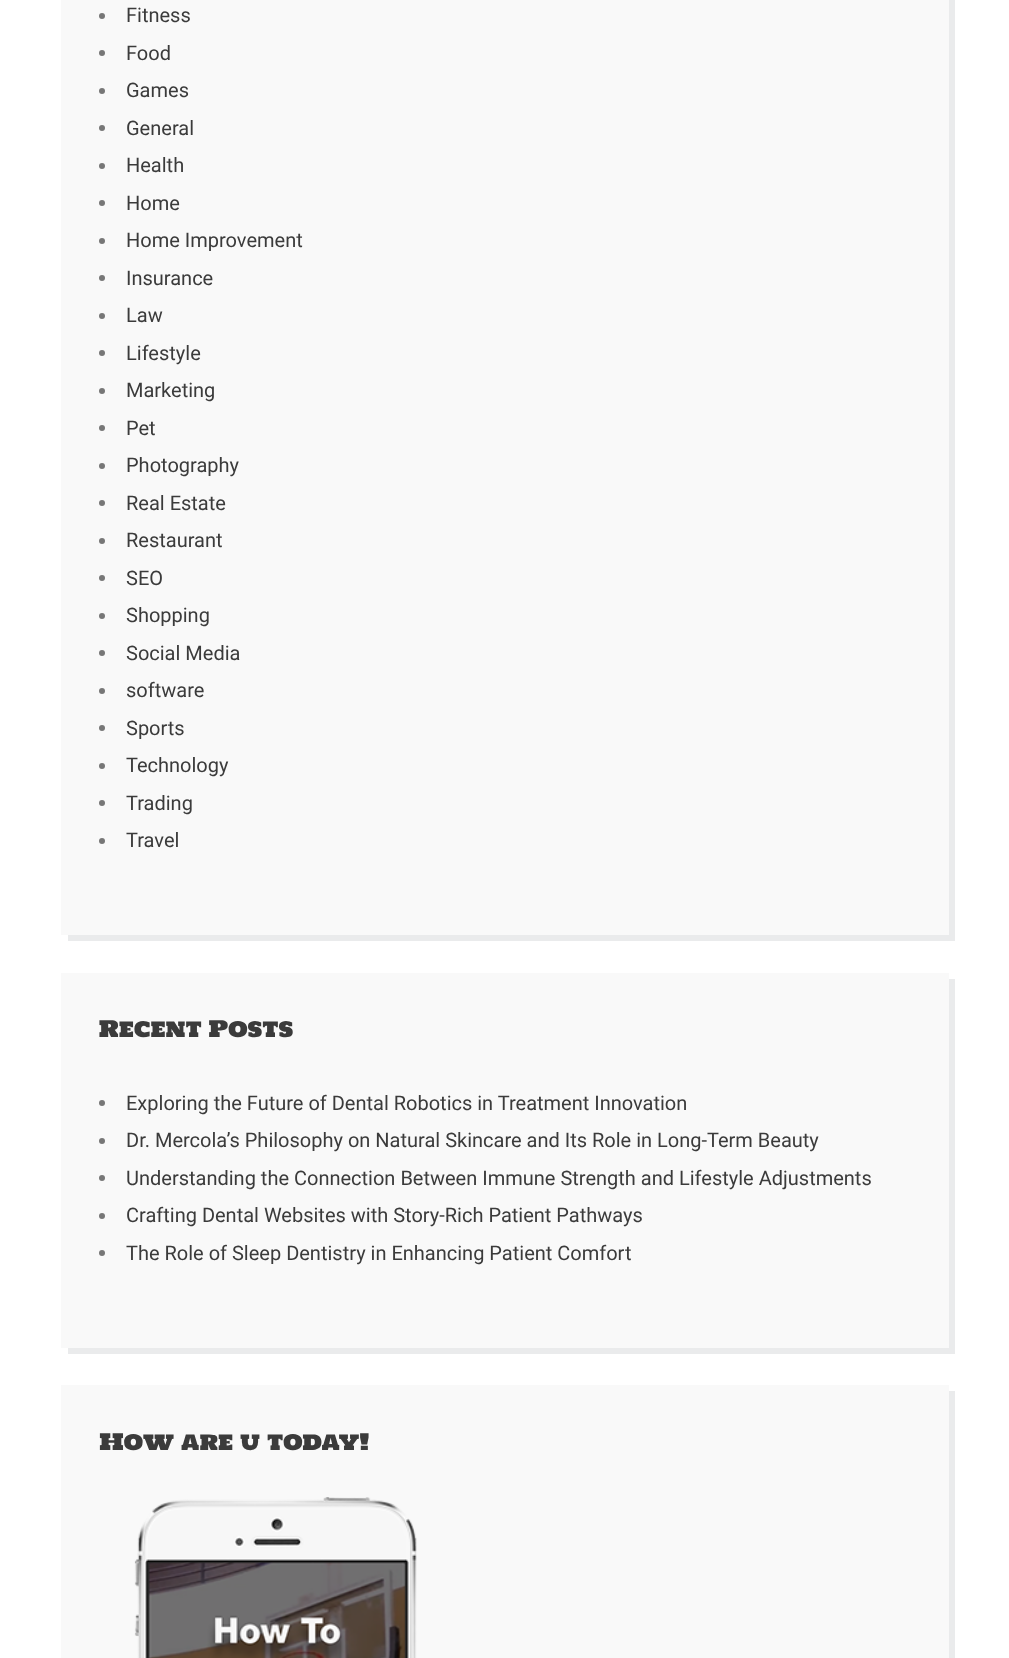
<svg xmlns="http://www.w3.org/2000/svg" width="1009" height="1658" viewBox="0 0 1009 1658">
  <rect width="100%" height="100%" fill="#fff"/>
  <path d="M68 935V941H955V-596H949V935Z" fill="#eaebec"/>
  <path d="M61 0h888v935H61z" fill="#f9f9f9"/>
  <circle cx="102" cy="16" r="3" fill="#777"/>
  <circle cx="102" cy="53" r="3" fill="#777"/>
  <circle cx="102" cy="91" r="3" fill="#777"/>
  <circle cx="102" cy="128" r="3" fill="#777"/>
  <circle cx="102" cy="166" r="3" fill="#777"/>
  <circle cx="102" cy="203" r="3" fill="#777"/>
  <circle cx="102" cy="241" r="3" fill="#777"/>
  <circle cx="102" cy="278" r="3" fill="#777"/>
  <circle cx="102" cy="316" r="3" fill="#777"/>
  <circle cx="102" cy="353" r="3" fill="#777"/>
  <circle cx="102" cy="391" r="3" fill="#777"/>
  <circle cx="102" cy="428" r="3" fill="#777"/>
  <circle cx="102" cy="466" r="3" fill="#777"/>
  <circle cx="102" cy="503" r="3" fill="#777"/>
  <circle cx="102" cy="541" r="3" fill="#777"/>
  <circle cx="102" cy="578" r="3" fill="#777"/>
  <circle cx="102" cy="616" r="3" fill="#777"/>
  <circle cx="102" cy="653" r="3" fill="#777"/>
  <circle cx="102" cy="691" r="3" fill="#777"/>
  <circle cx="102" cy="728" r="3" fill="#777"/>
  <circle cx="102" cy="766" r="3" fill="#777"/>
  <circle cx="102" cy="803" r="3" fill="#777"/>
  <circle cx="102" cy="841" r="3" fill="#777"/>
  <path d="M68 1348V1354H955V979H949V1348Z" fill="#eaebec"/>
  <path d="M61 973h888v375H61z" fill="#f9f9f9"/>
  <circle cx="102" cy="1103" r="3" fill="#777"/>
  <circle cx="102" cy="1141" r="3" fill="#777"/>
  <circle cx="102" cy="1178" r="3" fill="#777"/>
  <circle cx="102" cy="1216" r="3" fill="#777"/>
  <circle cx="102" cy="1253" r="3" fill="#777"/>
  <path d="M68 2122V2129H955V1391H949V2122Z" fill="#eaebec"/>
  <path d="M61 1385h888v273H61z" fill="#f9f9f9"/>
  <image x="134" y="1497" width="283" height="161" href="img/1.png"/>
  <g font-family="Roboto" font-size="20" fill="#3b3b3b">
    <text x="126" y="22">Fitness</text>
    <text x="126" y="60">Food</text>
    <text x="126" y="97">Games</text>
    <text x="126" y="135">General</text>
    <text x="126" y="172">Health</text>
    <text x="126" y="210">Home</text>
    <text x="126" y="247">Home Improvement</text>
    <text x="126" y="285">Insurance</text>
    <text x="126" y="322">Law</text>
    <text x="126" y="360">Lifestyle</text>
    <text x="126" y="397">Marketing</text>
    <text x="126" y="435">Pet</text>
    <text x="126" y="472">Photography</text>
    <text x="126" y="510">Real Estate</text>
    <text x="126" y="547">Restaurant</text>
    <text x="126" y="585">SEO</text>
    <text x="126" y="622">Shopping</text>
    <text x="126" y="660">Social Media</text>
    <text x="126" y="697">software</text>
    <text x="126" y="735">Sports</text>
    <text x="126" y="772">Technology</text>
    <text x="126" y="810">Trading</text>
    <text x="126" y="847">Travel</text>
  </g>
  <text x="99" y="1037" font-family="Holtwood One SC" font-size="22.5" fill="#3b3b3b">Recent Posts</text>
  <g font-family="Roboto" font-size="20" fill="#3b3b3b">
    <text x="126" y="1110">Exploring the Future of Dental Robotics in Treatment Innovation</text>
    <text x="126" y="1147">Dr. Mercola’s Philosophy on Natural Skincare and Its Role in Long-Term Beauty</text>
    <text x="126" y="1185">Understanding the Connection Between Immune Strength and Lifestyle Adjustments</text>
    <text x="126" y="1222">Crafting Dental Websites with Story-Rich Patient Pathways</text>
    <text x="126" y="1260">The Role of Sleep Dentistry in Enhancing Patient Comfort</text>
  </g>
  <text x="99" y="1450" font-family="Holtwood One SC" font-size="22.5" fill="#3b3b3b">How are u today!</text>
</svg>
